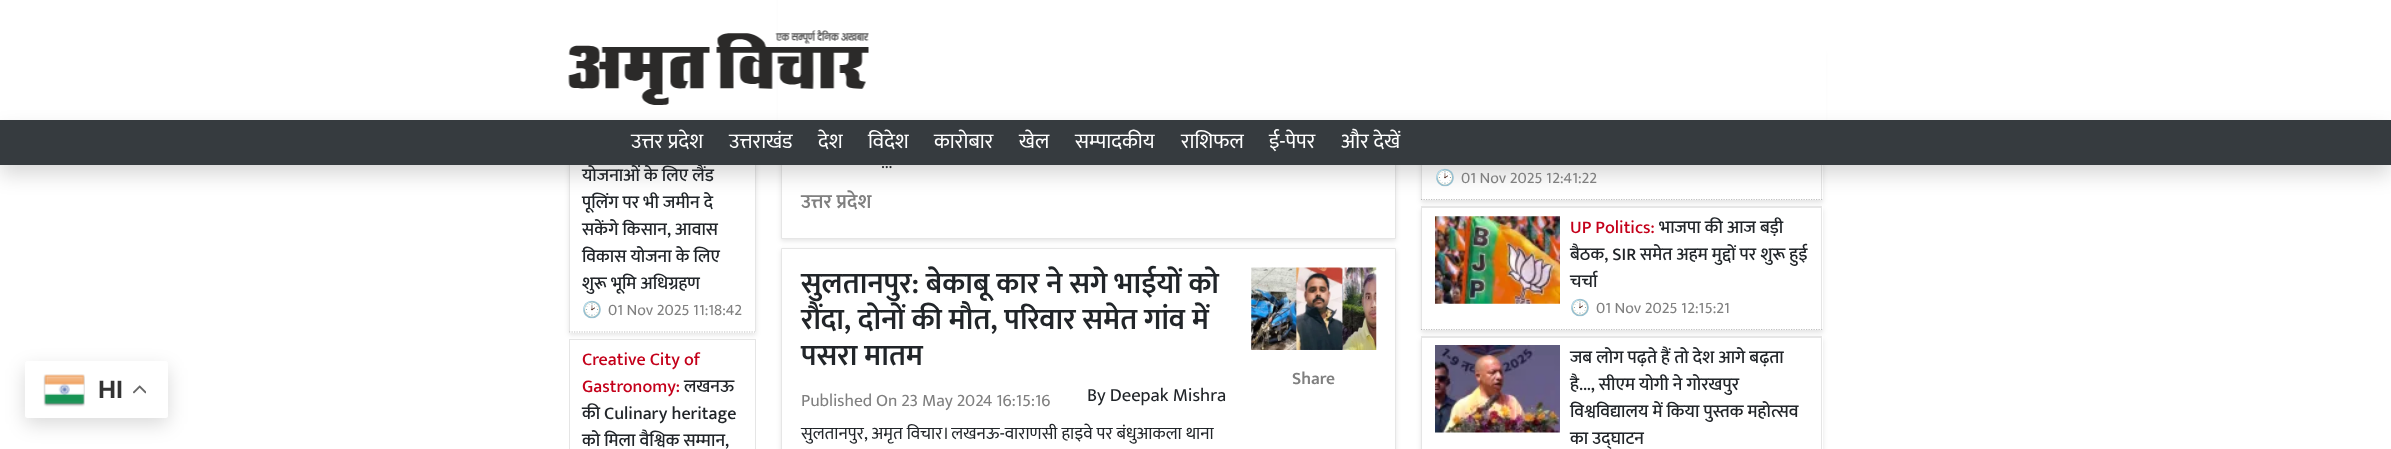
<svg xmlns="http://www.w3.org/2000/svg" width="2391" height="449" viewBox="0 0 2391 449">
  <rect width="100%" height="100%" fill="#fff"/>
  <path d="M781 -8h615v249H781z" fill="#0000001a" filter="blur(2.5px)"/>
  <path d="M782 165h613v73H782z" fill="#fff"/>
  <path d="M781.5 -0.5h614v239H781.5z" fill="none" stroke="#e6e6e6"/>
  <path d="M1421 53h402v150H1421z" fill="#0000001a" filter="blur(2.5px)"/>
  <path d="M1421 165h402v35H1421z" fill="#fff"/>
  <path d="M1822 50V200L1821 199V51Z" fill="#0000001a"/>
  <path d="M1421 199.5H1822.5" fill="none" stroke="#c0c0c0" stroke-width="1.2" stroke-dasharray="1.25 1.25"/>
  <path d="M1421 200V50L1422 51V199Z" fill="#0000001a"/>
  <path d="M778 0h1048v120H778z" fill="#fff"/>
  <image x="568" y="30" width="301" height="75" href="img/1.png"/>
  <path d="M569 130h187v205H569z" fill="#0000001a" filter="blur(2.5px)"/>
  <path d="M569 165h187v168H569z" fill="#fff"/>
  <path d="M756 128V332L755 331V129Z" fill="#0000001a"/>
  <path d="M569 332H756" fill="none" stroke="#c0c0c0" stroke-width="1.2" stroke-dasharray="1.25 1.25"/>
  <path d="M569 332V128L570 129V331Z" fill="#0000001a"/>
  <path d="M0 130h2391v45H0z" fill="#00000026" filter="blur(10px)"/>
  <rect x="25" y="368" width="143" height="56" rx="2.5" fill="#00000026" filter="blur(9.5px)"/>
  <rect x="25" y="361" width="143" height="57" rx="2.5" fill="#fff"/>
  <image x="43" y="374" width="42" height="33" href="img/2.png"/>
  <image x="133" y="385" width="13" height="9" href="img/3.png"/>
  <path d="M569 339H756L755 340H570Z" fill="#e5e5e5"/>
  <path d="M756 339V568L755 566V340Z" fill="#0000001a"/>
  <path d="M569 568V339L570 340V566Z" fill="#0000001a"/>
  <path d="M781 250h615v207H781z" fill="#0000001a" filter="blur(2.5px)"/>
  <path d="M781.5 248.5h614v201H781.5z" fill="#fff" stroke="#e6e6e6"/>
  <image x="1251" y="267" width="126" height="83" href="img/4.png"/>
  <path d="M1421 209h402v124H1421z" fill="#0000001a" filter="blur(2.5px)"/>
  <path d="M1421 206h402v124H1421z" fill="#fff"/>
  <path d="M1421 206H1822L1821 208H1422Z" fill="#e6e6e6"/>
  <path d="M1822 206V330L1821 329V208Z" fill="#0000001a"/>
  <path d="M1421 329.5H1822.5" fill="none" stroke="#c0c0c0" stroke-width="1.2" stroke-dasharray="1.25 1.25"/>
  <path d="M1421 330V206L1422 208V329Z" fill="#0000001a"/>
  <image x="1435" y="216" width="125" height="88" href="img/5.png"/>
  <path d="M1421 339h402v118H1421z" fill="#0000001a" filter="blur(2.5px)"/>
  <path d="M1421 336h402v113H1421z" fill="#fff"/>
  <path d="M1421 336H1822L1821 338H1422Z" fill="#e6e6e6"/>
  <path d="M1822 336V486L1821 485V338Z" fill="#0000001a"/>
  <path d="M1421 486V336L1422 338V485Z" fill="#0000001a"/>
  <image x="1435" y="345" width="125" height="88" href="img/6.png"/>
  <text x="98" y="398" font-family="Liberation Sans" font-size="25" font-weight="bold" fill="#333">HI</text>
  <text x="582" y="181" font-family="Mukta" font-size="18" font-weight="500" fill="#212529">योजनाओं के लिए लैंड</text>
  <path d="M0 120h2391v45H0z" fill="#363b3f"/>
  <g font-family="Mukta" font-size="21" fill="#fff">
    <text x="1341" y="148">और देखें</text>
    <text x="1269" y="148">ई-पेपर</text>
    <text x="1181" y="148">राशिफल</text>
    <text x="1075" y="148">सम्पादकीय</text>
    <text x="1019" y="148">खेल</text>
    <text x="934" y="148">कारोबार</text>
    <text x="868" y="148">विदेश</text>
    <text x="818" y="148">देश</text>
    <text x="729" y="148">उत्तराखंड</text>
    <text x="631" y="148">उत्तर प्रदेश</text>
  </g>
  <g font-family="Mukta" font-size="18" font-weight="500" fill="#212529">
    <text x="582" y="208">पूलिंग पर भी जमीन दे</text>
    <text x="582" y="235">सकेंगे किसान, आवास</text>
    <text x="582" y="262">विकास योजना के लिए</text>
    <text x="582" y="289">शुरू भूमि अधिग्रहण</text>
  </g>
  <text x="582" y="315" font-family="Noto Color Emoji" font-size="16" fill="#808080">🕑</text>
  <text x="608" y="315" font-family="Mukta" font-size="16" fill="#808080">01 Nov 2025 11:18:42</text>
  <g font-family="Mukta" font-size="18" font-weight="500" fill="#c4001a">
    <text x="582" y="365">Creative City of</text>
    <text x="582" y="392">Gastronomy:</text>
  </g>
  <g font-family="Mukta" font-size="18" font-weight="500" fill="#212529">
    <text x="684" y="392">लखनऊ</text>
    <text x="582" y="419">की Culinary heritage</text>
    <text x="582" y="446">को मिला वैश्विक सम्मान,</text>
  </g>
  <text x="881" y="168" font-family="Mukta" font-size="17.5" fill="#212529">...</text>
  <text x="801" y="208" font-family="Mukta" font-size="20" font-weight="600" fill="#808080">उत्तर प्रदेश</text>
  <g font-family="Mukta" font-size="30" font-weight="600" fill="#212529">
    <text x="801" y="293">सुलतानपुर: बेकाबू कार ने सगे भाईयों को</text>
    <text x="801" y="329">रौंदा, दोनों की मौत, परिवार समेत गांव में</text>
    <text x="801" y="365">पसरा मातम</text>
  </g>
  <text x="801" y="406" font-family="Mukta" font-size="17.5" fill="#808080">Published On 23 May 2024 16:15:16</text>
  <text x="1087" y="401" font-family="Mukta" font-size="18.75" fill="#212529">By Deepak Mishra</text>
  <text x="801" y="439" font-family="Mukta" font-size="17.5" fill="#212529">सुलतानपुर, अमृत विचार। लखनऊ-वाराणसी हाइवे पर बंधुआकला थाना</text>
  <text x="1292" y="384" font-family="Mukta" font-size="17.5" font-weight="600" fill="#808080">Share</text>
  <text x="1435" y="183" font-family="Noto Color Emoji" font-size="16" fill="#808080">🕑</text>
  <text x="1461" y="183" font-family="Mukta" font-size="16" fill="#808080">01 Nov 2025 12:41:22</text>
  <text x="1570" y="233" font-family="Mukta" font-size="18" font-weight="500" fill="#c4001a">UP Politics:</text>
  <g font-family="Mukta" font-size="18" font-weight="500" fill="#212529">
    <text x="1659" y="233">भाजपा की आज बड़ी</text>
    <text x="1570" y="260">बैठक, SIR समेत अहम मुद्दों पर शुरू हुई</text>
    <text x="1570" y="287">चर्चा</text>
  </g>
  <text x="1570" y="313" font-family="Noto Color Emoji" font-size="16" fill="#808080">🕑</text>
  <text x="1596" y="313" font-family="Mukta" font-size="16" fill="#808080">01 Nov 2025 12:15:21</text>
  <g font-family="Mukta" font-size="18" font-weight="500" fill="#212529">
    <text x="1570" y="363">जब लोग पढ़ते हैं तो देश आगे बढ़ता</text>
    <text x="1570" y="390">है..., सीएम योगी ने गोरखपुर</text>
    <text x="1570" y="417">विश्वविद्यालय में किया पुस्तक महोत्सव</text>
    <text x="1570" y="444">का उद्घाटन</text>
  </g>
</svg>
